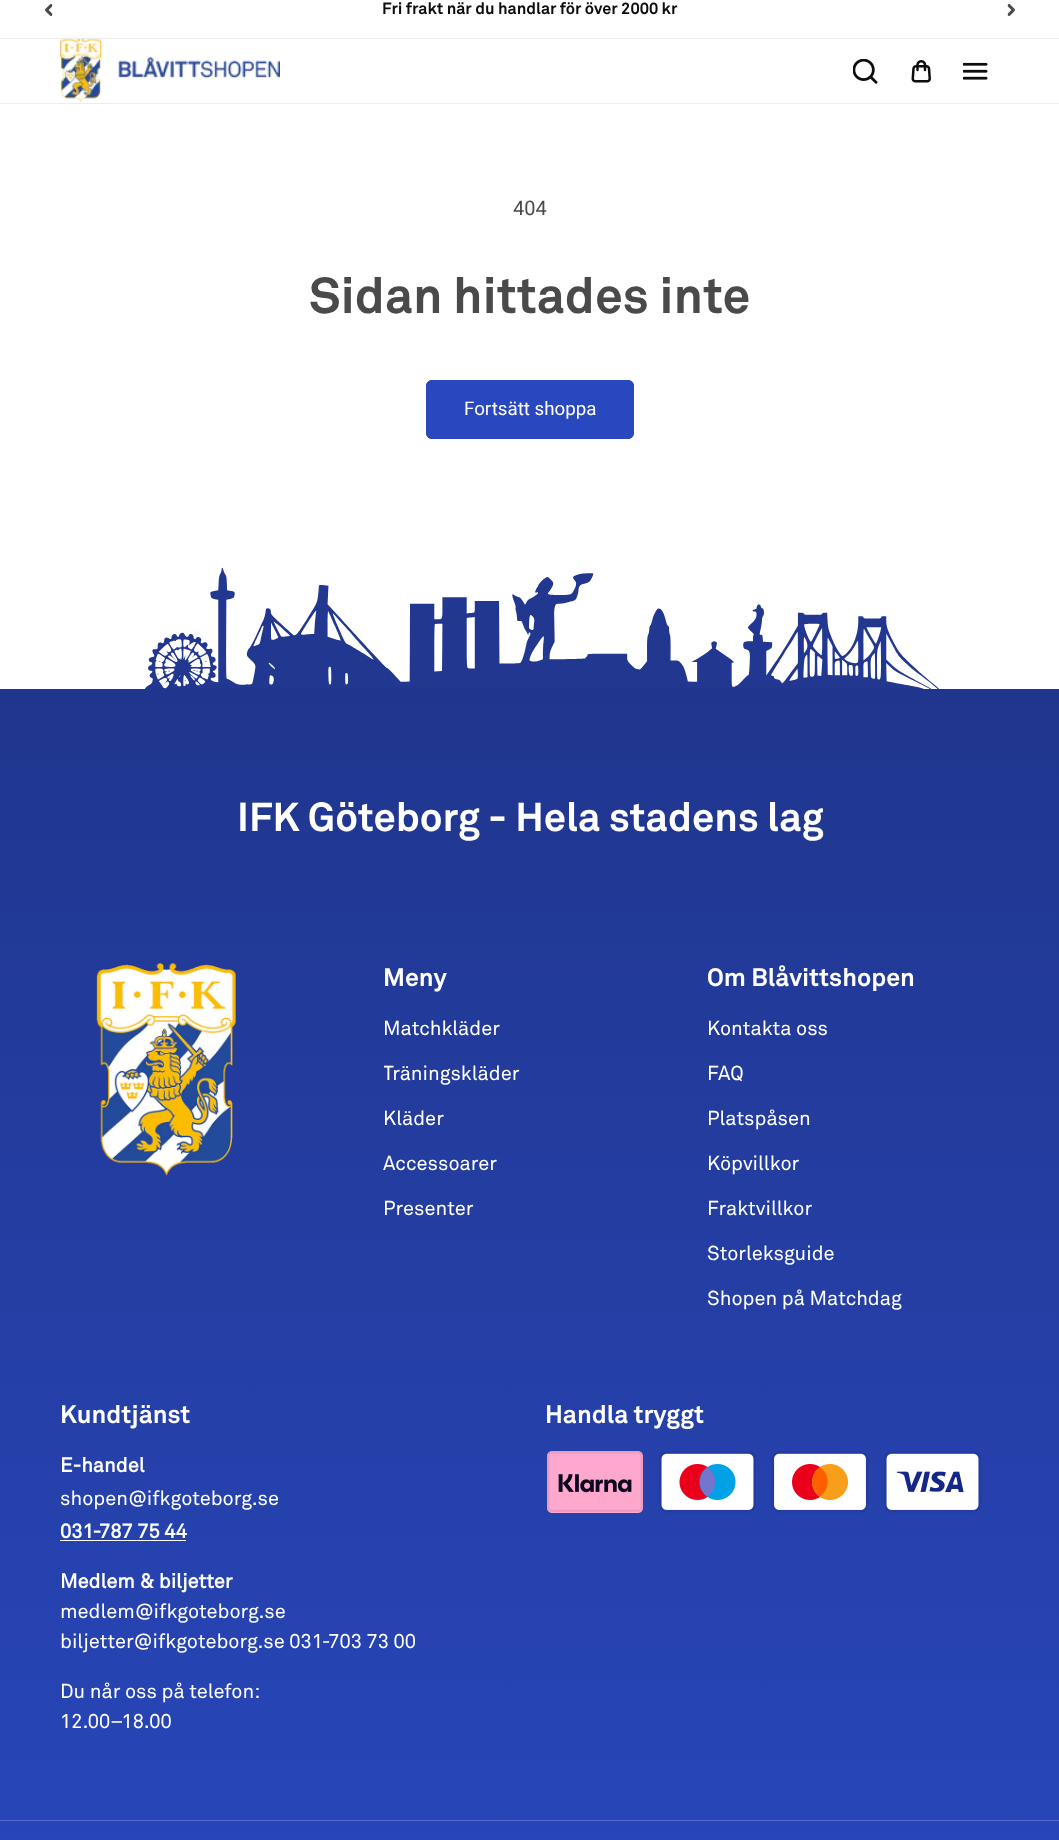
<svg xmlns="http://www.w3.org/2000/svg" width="1059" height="1840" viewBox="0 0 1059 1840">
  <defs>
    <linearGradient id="g1" gradientUnits="userSpaceOnUse" x1="530" y1="689" x2="530" y2="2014"><stop offset="0" stop-color="#20368e"/><stop offset="1" stop-color="#2948bf"/></linearGradient>
    <clipPath id="clip1"><path d="M384 1059h136v30H384z"/></clipPath>
  </defs>
  <rect width="100%" height="100%" fill="#fff"/>
  <path d="M0 38h1059v1H0z" fill="#ececec"/>
  <image x="45" y="4" width="8" height="12" href="img/1.png"/>
  <image x="1007" y="4" width="8" height="12" href="img/2.png"/>
  <path d="M0 103h1059v1H0z" fill="#ececec"/>
  <image x="60" y="39" width="220" height="63" href="img/3.png"/>
  <image x="853" y="59" width="25" height="25" href="img/4.png"/>
  <image x="911" y="60" width="20" height="23" href="img/5.png"/>
  <image x="963" y="62" width="25" height="18" href="img/6.png"/>
  <rect x="426" y="380" width="208" height="59" rx="6" fill="#2948bf"/>
  <rect x="426.5" y="380.5" width="207" height="58" rx="5.5" fill="none" stroke="#2948bf"/>
  <image x="145" y="567" width="794" height="122" href="img/7.png"/>
  <path d="M0 689h1059v1151H0z" fill="url(#g1)"/>
  <image x="96" y="963" width="140" height="213" href="img/8.png"/>
  <path d="M60 1540h126v1H60z" fill="#fff"/>
  <image x="547" y="1451" width="96" height="62" href="img/9.png"/>
  <image x="659" y="1451" width="97" height="62" href="img/10.png"/>
  <image x="771" y="1451" width="98" height="62" href="img/11.png"/>
  <image x="884" y="1451" width="97" height="62" href="img/12.png"/>
  <path d="M0 1820h1059v1H0z" fill="#536ac6"/>
  <text x="382" y="14" font-family="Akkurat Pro" font-size="16.25" font-weight="bold" fill="#0d0d0d">Fri frakt när du handlar för över 2000 kr</text>
  <text x="513" y="215" font-family="Roboto" font-size="20" fill="#4a4a4a">404</text>
  <text x="309" y="313" font-family="Akkurat Pro" font-size="50" font-weight="bold" fill="#4a4a4a">Sidan hittades inte</text>
  <text x="464" y="415" font-family="Roboto" font-size="18.75" fill="#fff">Fortsätt shoppa</text>
  <text x="237" y="831" font-family="Akkurat Pro" font-size="40" font-weight="bold" fill="#fff">IFK Göteborg - Hela stadens lag</text>
  <text x="383" y="986" font-family="Akkurat Pro" font-size="25" font-weight="bold" fill="#fff">Meny</text>
  <text x="383" y="1035" font-family="Akkurat Pro" font-size="20" fill="#fff">Matchkläder</text>
  <g clip-path="url(#clip1)">
    <text x="383" y="1080" font-family="Akkurat Pro" font-size="20" fill="#fff">Träningskläder</text>
  </g>
  <g font-family="Akkurat Pro" font-size="20" fill="#fff">
    <text x="383" y="1125">Kläder</text>
    <text x="383" y="1170">Accessoarer</text>
    <text x="383" y="1215">Presenter</text>
  </g>
  <text x="707" y="986" font-family="Akkurat Pro" font-size="25" font-weight="bold" fill="#fff">Om Blåvittshopen</text>
  <g font-family="Akkurat Pro" font-size="20" fill="#fff">
    <text x="707" y="1035">Kontakta oss</text>
    <text x="707" y="1080">FAQ</text>
    <text x="707" y="1125">Platspåsen</text>
    <text x="707" y="1170">Köpvillkor</text>
    <text x="707" y="1215">Fraktvillkor</text>
    <text x="707" y="1260">Storleksguide</text>
    <text x="707" y="1305">Shopen på Matchdag</text>
  </g>
  <text x="60" y="1423" font-family="Akkurat Pro" font-size="25" font-weight="bold" fill="#fff">Kundtjänst</text>
  <text x="60" y="1472" font-family="'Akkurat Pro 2'" font-size="20" font-weight="bold" fill="#fff">E-handel</text>
  <text x="60" y="1505" font-family="Akkurat Pro" font-size="20" fill="#fff">shopen@ifkgoteborg.se</text>
  <g font-family="'Akkurat Pro 2'" font-size="20" font-weight="bold" fill="#fff">
    <text x="60" y="1538">031-787 75 44</text>
    <text x="60" y="1588">Medlem &amp; biljetter</text>
  </g>
  <g font-family="Akkurat Pro" font-size="20" fill="#fff">
    <text x="60" y="1618">medlem@ifkgoteborg.se</text>
    <text x="60" y="1648">biljetter@ifkgoteborg.se 031-703 73 00</text>
    <text x="60" y="1698">Du når oss på telefon:</text>
    <text x="60" y="1728">12.00–18.00</text>
  </g>
  <text x="545" y="1423" font-family="Akkurat Pro" font-size="25" font-weight="bold" fill="#fff">Handla tryggt</text>
</svg>
